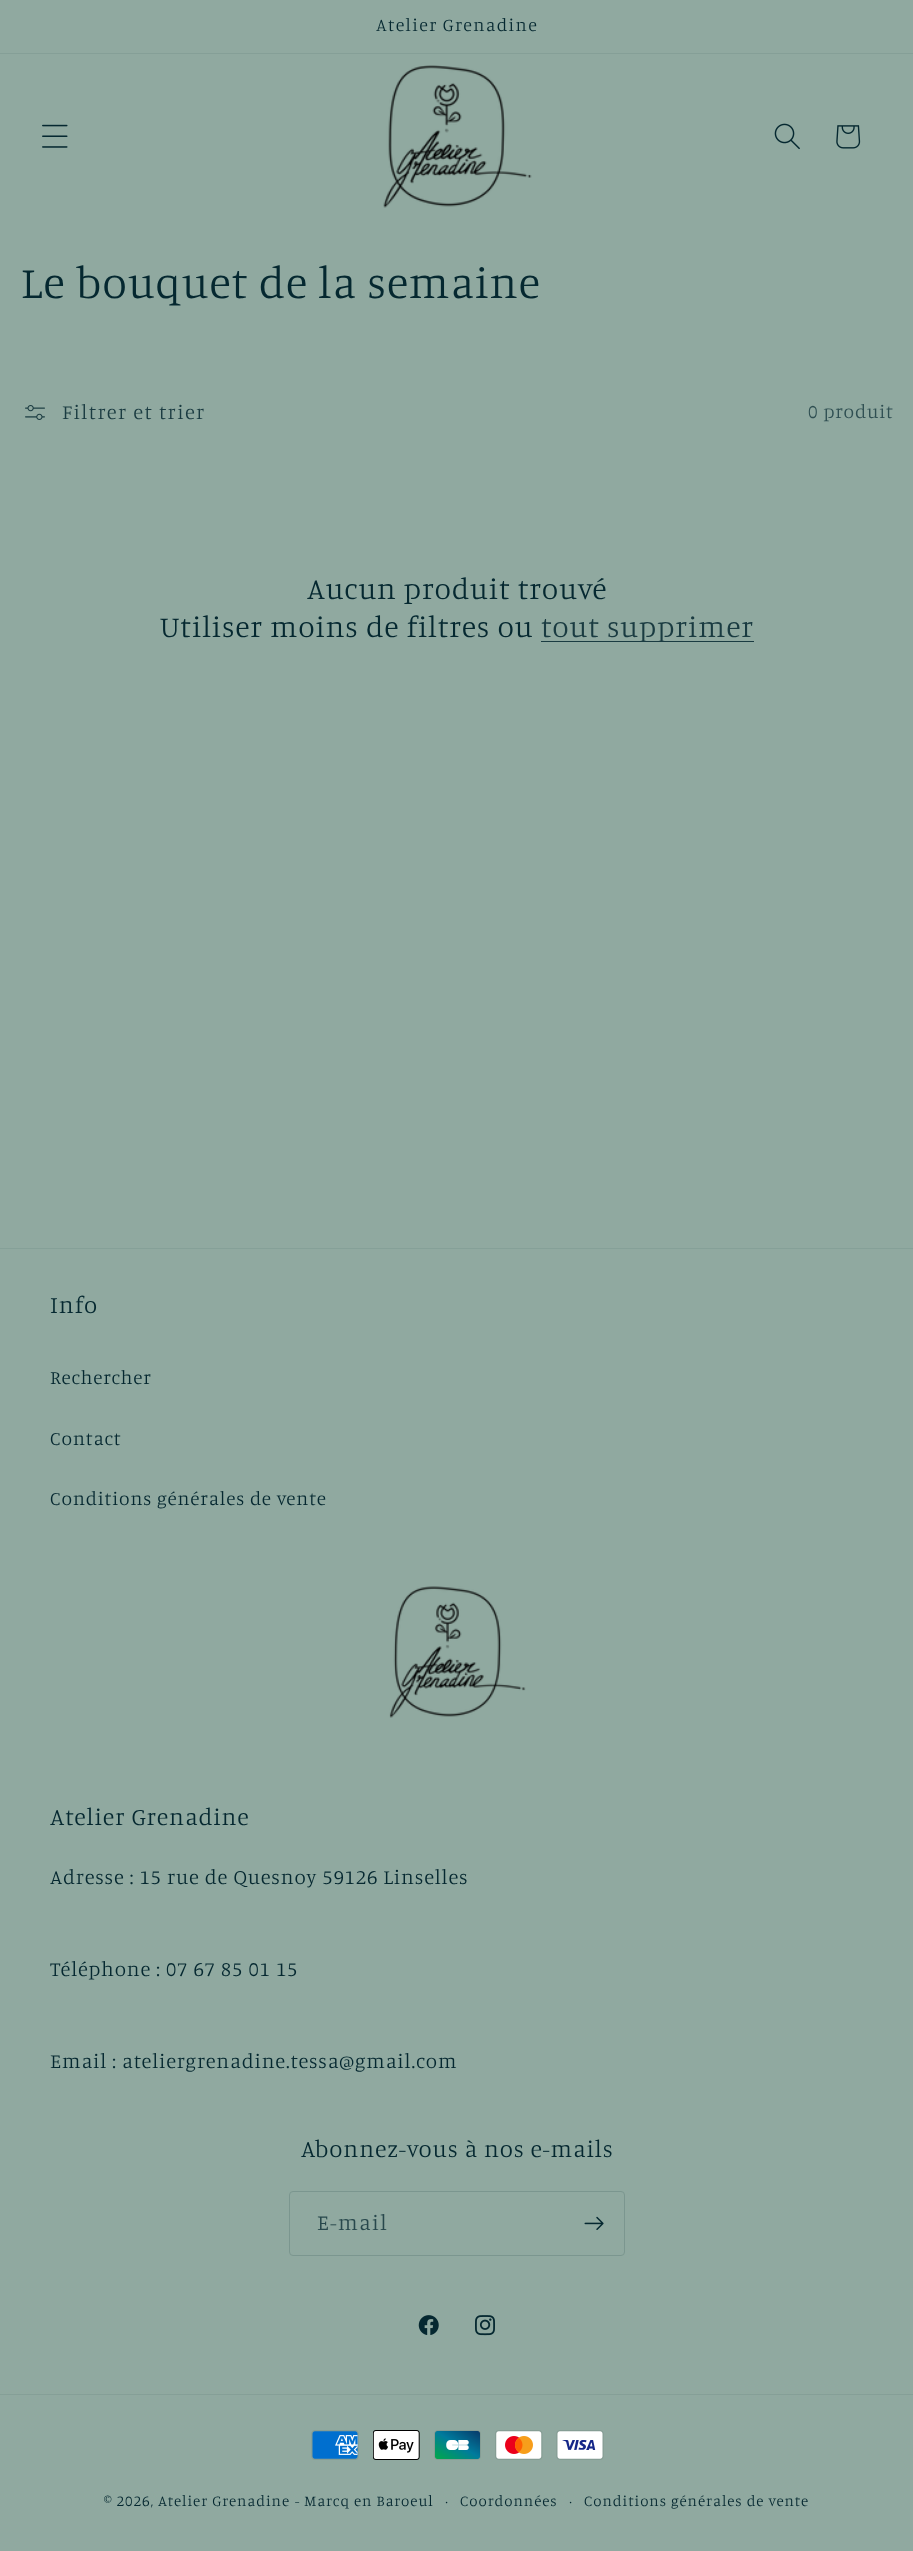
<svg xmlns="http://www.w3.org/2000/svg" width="913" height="2551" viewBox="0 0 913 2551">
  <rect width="100%" height="100%" fill="#90a9a0"/>
  <path d="M0 53h913v1H0z" fill="#859f97"/>
  <image x="42" y="124" width="26" height="24" href="img/1.png"/>
  <image x="383" y="65" width="149" height="143" href="img/2.png"/>
  <image x="774" y="123" width="26" height="27" href="img/3.png"/>
  <image x="836" y="125" width="25" height="24" href="img/4.png"/>
  <image x="25" y="405" width="20" height="15" href="img/5.png"/>
  <path d="M541 641h213v1H541z" fill="#1a3b41"/>
  <path d="M0 1248h913v1H0z" fill="#85a098"/>
  <image x="389" y="1586" width="137" height="132" href="img/6.png"/>
  <rect x="289.5" y="2191.5" width="335" height="64" rx="3.5" fill="none" stroke="#7b968f"/>
  <image x="584" y="2216" width="20" height="14" href="img/7.png"/>
  <image x="418" y="2315" width="21" height="20" href="img/8.png"/>
  <image x="475" y="2315" width="20" height="21" href="img/9.png"/>
  <path d="M0 2394h913v1H0z" fill="#859f97"/>
  <image x="311" y="2430" width="48" height="30" href="img/10.png"/>
  <image x="373" y="2430" width="47" height="30" href="img/11.png"/>
  <image x="434" y="2430" width="47" height="30" href="img/12.png"/>
  <image x="495" y="2430" width="48" height="30" href="img/13.png"/>
  <image x="556" y="2430" width="48" height="30" href="img/14.png"/>
  <text x="376" y="31" font-family="Manuale" font-size="18" font-weight="300" letter-spacing="1.4" fill="#052830">Atelier Grenadine</text>
  <text x="21" y="298" font-family="Manuale" font-size="45" font-weight="300" letter-spacing="0.9" fill="#052830">Le bouquet de la semaine</text>
  <text x="62" y="419" font-family="Manuale" font-size="20.6" font-weight="300" letter-spacing="1.4" fill="#1a3b41">Filtrer et trier</text>
  <text x="808" y="418" font-family="Manuale" font-size="19.25" font-weight="300" letter-spacing="0.85" fill="#2f4f52">0 produit</text>
  <g font-family="Manuale" font-size="30" font-weight="300" letter-spacing="0.9" fill="#052830">
    <text x="307" y="599">Aucun produit trouvé</text>
    <text x="160" y="637">Utiliser moins de filtres ou</text>
  </g>
  <text x="541" y="637" font-family="Manuale" font-size="30" font-weight="300" letter-spacing="0.9" fill="#1a3b41">tout supprimer</text>
  <text x="50" y="1313" font-family="Manuale" font-size="24" font-weight="300" letter-spacing="0.9" fill="#052830">Info</text>
  <g font-family="Manuale" font-size="19.25" font-weight="300" letter-spacing="0.85" fill="#052830">
    <text x="50" y="1384">Rechercher</text>
    <text x="50" y="1445">Contact</text>
    <text x="50" y="1505">Conditions générales de vente</text>
  </g>
  <text x="50" y="1825" font-family="Manuale" font-size="24" font-weight="300" letter-spacing="0.9" fill="#052830">Atelier Grenadine</text>
  <g font-family="Manuale" font-size="20.6" font-weight="300" letter-spacing="0.85" fill="#052830">
    <text x="50" y="1884">Adresse : 15 rue de Quesnoy 59126 Linselles</text>
    <text x="50" y="1976">Téléphone : 07 67 85 01 15</text>
    <text x="50" y="2068">Email : ateliergrenadine.tessa@gmail.com</text>
  </g>
  <text x="301" y="2157" font-family="Manuale" font-size="24" font-weight="300" letter-spacing="0.9" fill="#052830">Abonnez-vous à nos e-mails</text>
  <text x="317" y="2230" font-family="Manuale" font-size="22" font-weight="300" letter-spacing="1.4" fill="#28484c">E-mail</text>
  <g font-family="Manuale" font-size="15.1" font-weight="300" letter-spacing="0.95" fill="#052830">
    <text x="104" y="2506">© 2026, Atelier Grenadine</text>
    <text x="295" y="2506">- Marcq en Baroeul</text>
  </g>
  <text x="445" y="2506" font-family="Manuale" font-size="14" font-weight="300" letter-spacing="0.95" fill="#052830">·</text>
  <text x="460" y="2506" font-family="Manuale" font-size="15.1" font-weight="300" letter-spacing="0.95" fill="#052830">Coordonnées</text>
  <text x="569" y="2506" font-family="Manuale" font-size="14" font-weight="300" letter-spacing="0.95" fill="#052830">·</text>
  <text x="584" y="2506" font-family="Manuale" font-size="15.1" font-weight="300" letter-spacing="0.95" fill="#052830">Conditions générales de vente</text>
</svg>
